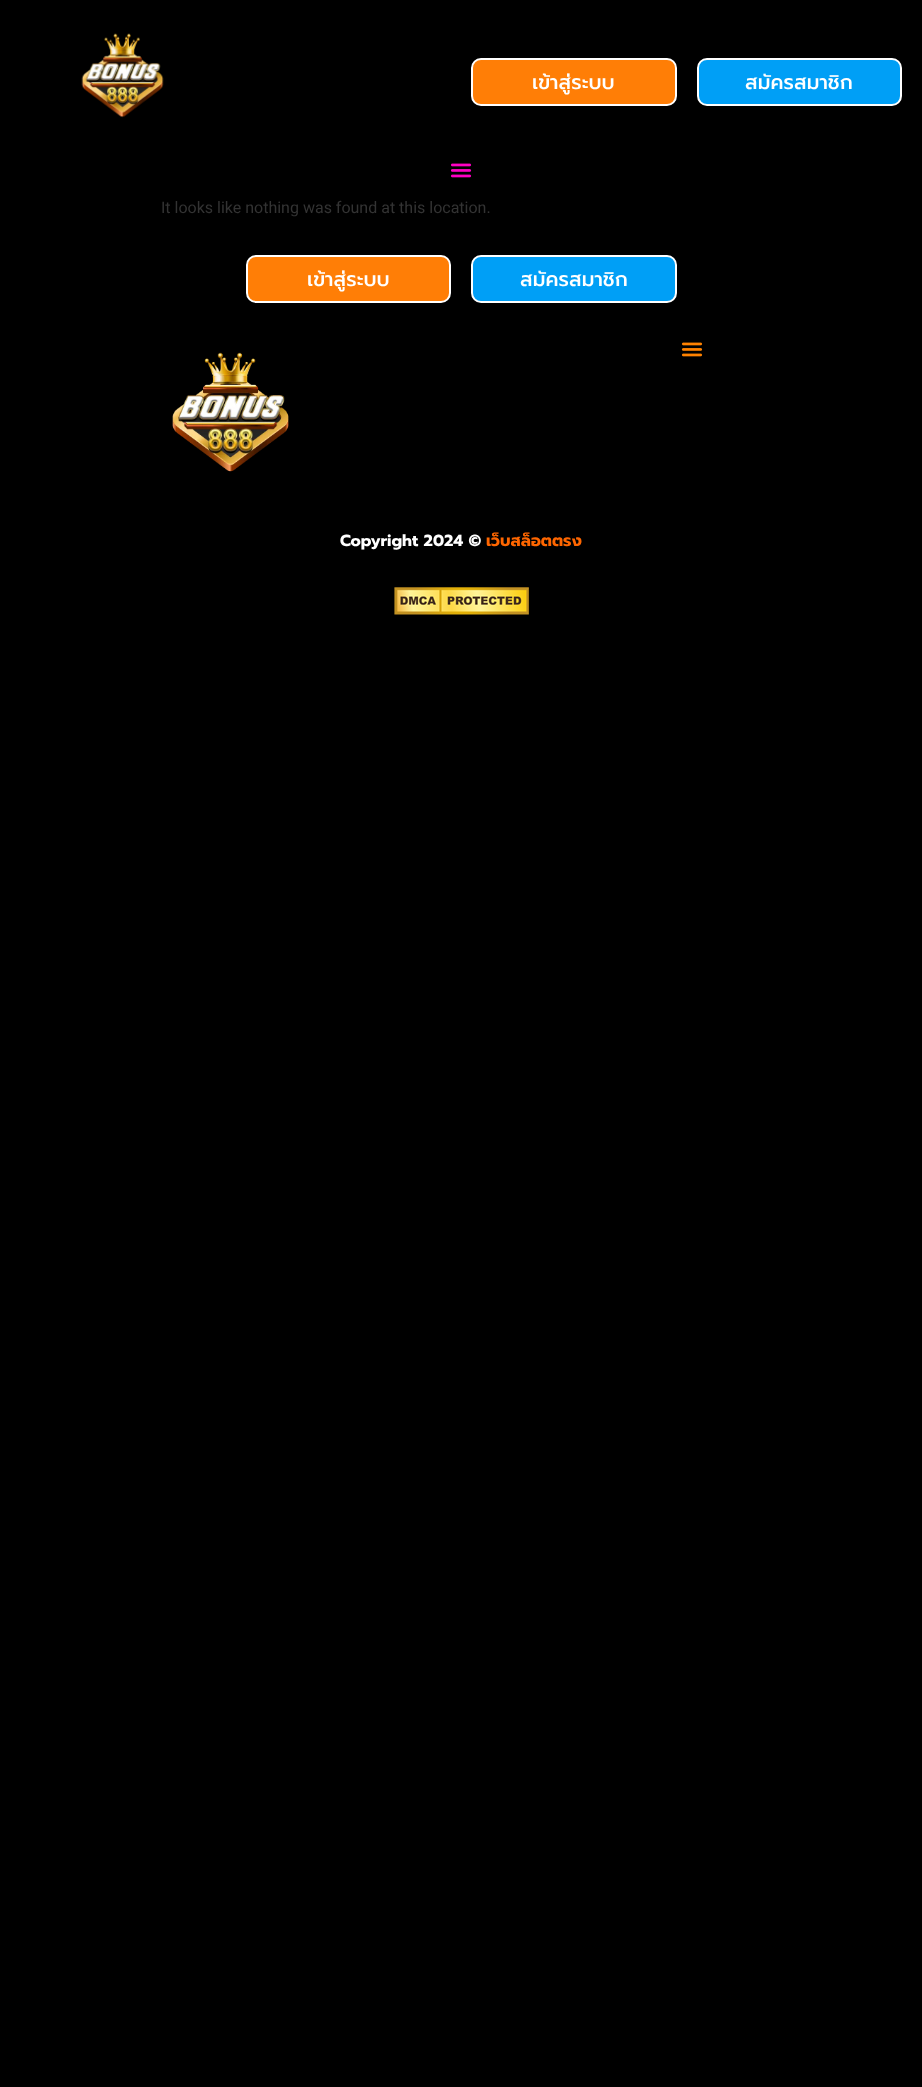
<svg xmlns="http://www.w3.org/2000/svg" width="922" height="2087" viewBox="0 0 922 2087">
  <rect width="100%" height="100%" fill="#000"/>
  <image x="81" y="33" width="83" height="85" href="img/1.png"/>
  <rect x="472" y="59" width="204" height="46" rx="9" fill="#ff7e06" stroke="#fff" stroke-width="2"/>
  <rect x="698" y="59" width="203" height="46" rx="9" fill="#009ff6" stroke="#fff" stroke-width="2"/>
  <image x="450" y="163" width="22" height="15" href="img/2.png"/>
  <rect x="247" y="256" width="203" height="46" rx="9" fill="#ff7e06" stroke="#fff" stroke-width="2"/>
  <rect x="472" y="256" width="204" height="46" rx="9" fill="#009ff6" stroke="#fff" stroke-width="2"/>
  <image x="681" y="342" width="22" height="15" href="img/3.png"/>
  <image x="172" y="352" width="117" height="120" href="img/4.png"/>
  <image x="394" y="587" width="135" height="28" href="img/5.png"/>
  <g font-family="Prompt" font-size="20" font-weight="500" fill="#fff">
    <text x="532" y="89">เข้าสู่ระบบ</text>
    <text x="745" y="89">สมัครสมาชิก</text>
  </g>
  <text x="161" y="213" font-family="Roboto" font-size="16" fill="#333">It looks like nothing was found at this location.</text>
  <g font-family="Prompt" font-size="20" font-weight="500" fill="#fff">
    <text x="307" y="286">เข้าสู่ระบบ</text>
    <text x="520" y="286">สมัครสมาชิก</text>
  </g>
  <text x="340" y="546" font-family="Prompt" font-size="16" font-weight="bold" fill="#fff">Copyright 2024 ©</text>
  <text x="486" y="546" font-family="Prompt" font-size="16" font-weight="bold" fill="#f60">เว็บสล็อตตรง</text>
</svg>
